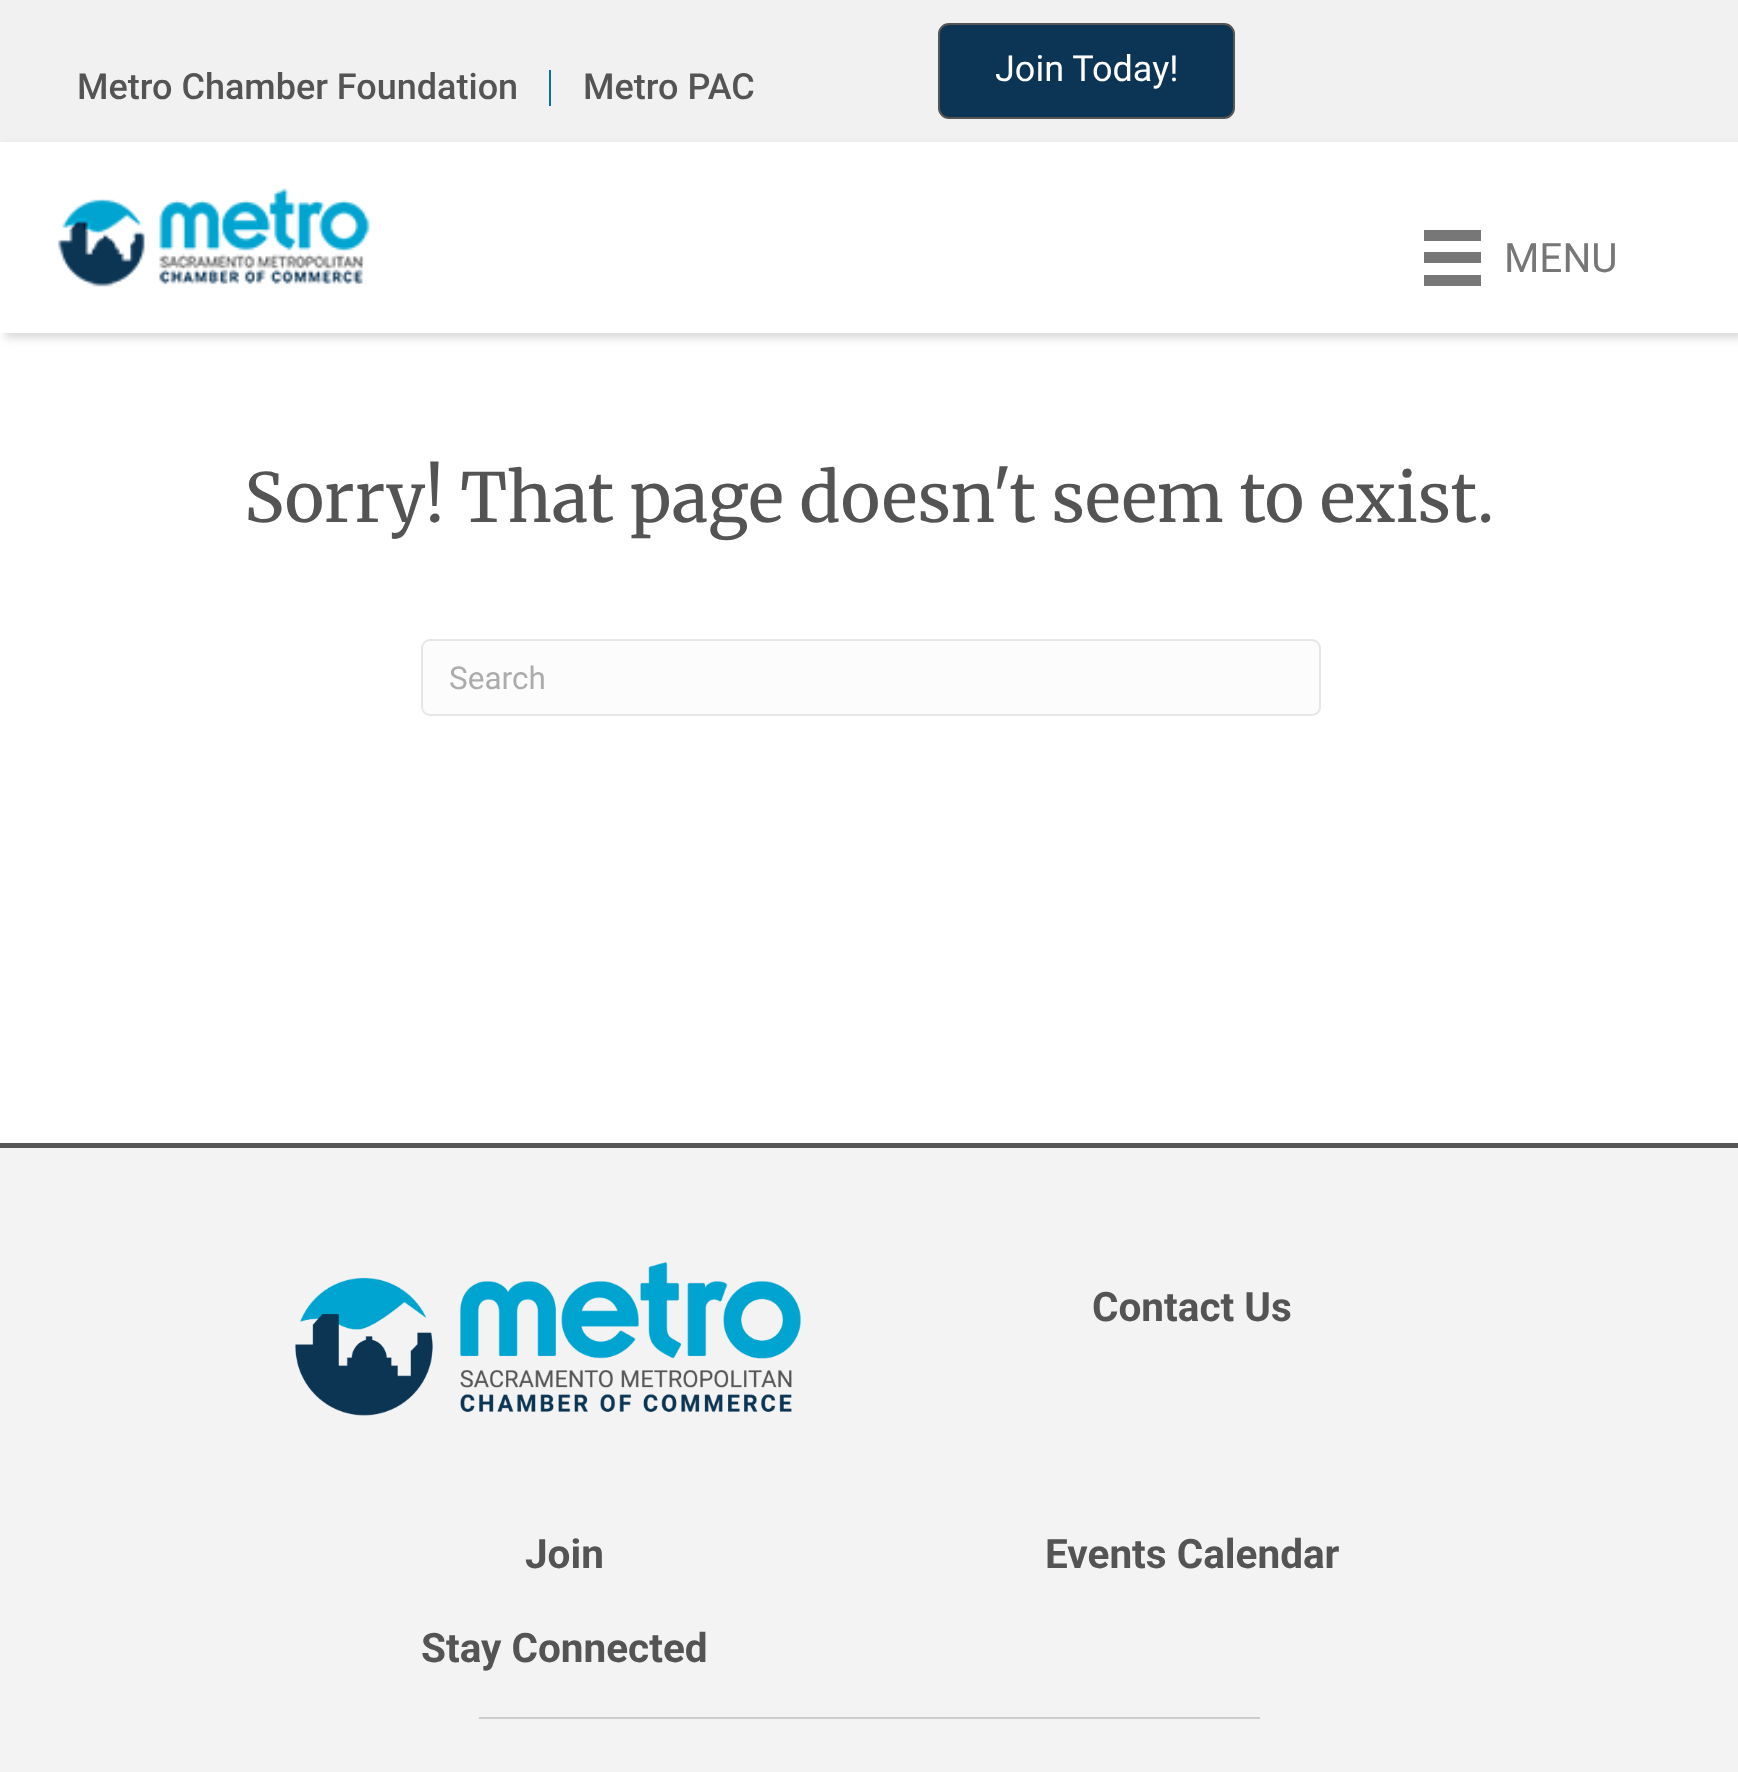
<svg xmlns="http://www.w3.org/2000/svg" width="1738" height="1772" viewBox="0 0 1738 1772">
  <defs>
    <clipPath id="clip1"><path d="M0 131H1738V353H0ZM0 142H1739V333H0Z" clip-rule="evenodd"/></clipPath>
  </defs>
  <rect width="100%" height="100%" fill="#fff"/>
  <path d="M0 0h1738v142H0z" fill="#f1f1f1"/>
  <path d="M549 70h2v36H549z" fill="#0075a3"/>
  <rect x="939" y="24" width="295" height="94" rx="10" fill="#0c3455" stroke="#555" stroke-width="2"/>
  <g clip-path="url(#clip1)">
    <path d="M5 146h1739v192H5z" fill="#33333330" filter="blur(4.5px)"/>
  </g>
  <image x="58" y="188" width="312" height="99" href="img/1.png"/>
  <path d="M1424 230h57v11H1424z" fill="#777"/>
  <path d="M1424 252h57v11H1424z" fill="#777"/>
  <path d="M1424 275h57v11H1424z" fill="#777"/>
  <rect x="422" y="640" width="898" height="75" rx="8" fill="#fcfcfc" stroke="#e6e6e6" stroke-width="2"/>
  <path d="M0 1148h1738v624H0z" fill="#f3f3f3"/>
  <path d="M0 1143h1738v5H0z" fill="#565656"/>
  <image x="295" y="1262" width="506" height="154" href="img/2.png"/>
  <path d="M479 1717h781v2H479z" fill="#ccc"/>
  <g font-family="Roboto" font-size="36" font-weight="500" fill="#545454">
    <text x="77" y="99">Metro Chamber Foundation</text>
    <text x="583" y="99">Metro PAC</text>
  </g>
  <text x="995" y="81" font-family="Roboto" font-size="36" fill="#fff">Join Today!</text>
  <text x="1504" y="272" font-family="Roboto" font-size="40.5" fill="#777">MENU</text>
  <text x="244" y="522" font-family="Merriweather" font-size="67.5" font-weight="300" fill="#545454">Sorry! That page doesn't seem to exist.</text>
  <text x="449" y="689" font-family="Roboto" font-size="31.5" fill="#acacac">Search</text>
  <g font-family="Roboto" font-size="40.5" font-weight="bold" fill="#545454">
    <text x="1092" y="1321">Contact Us</text>
    <text x="525" y="1568">Join</text>
    <text x="1045" y="1568">Events Calendar</text>
    <text x="421" y="1662">Stay Connected</text>
  </g>
</svg>
